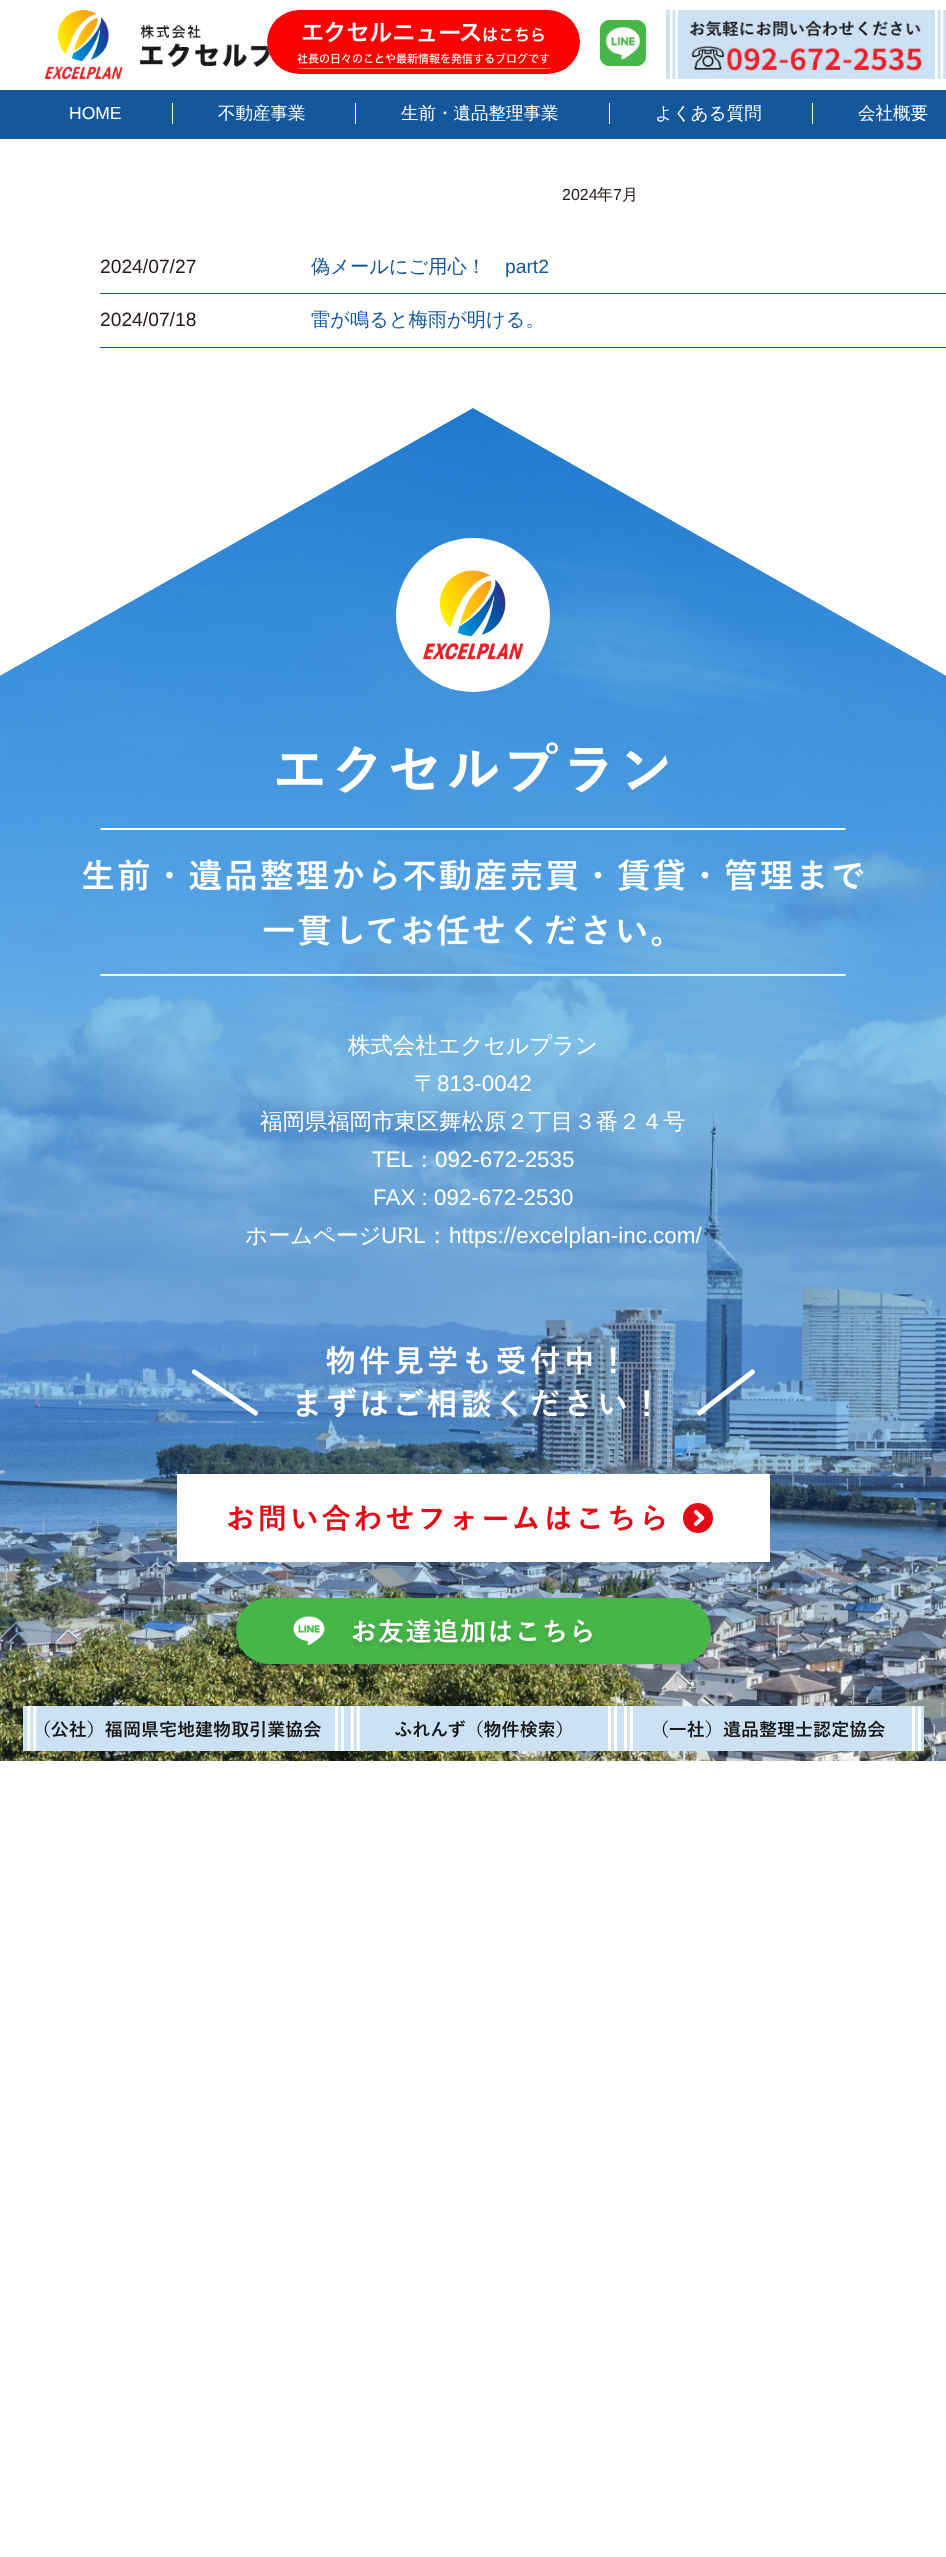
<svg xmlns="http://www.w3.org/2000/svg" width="946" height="2557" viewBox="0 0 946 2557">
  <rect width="100%" height="100%" fill="#fff"/>
  <image x="44" y="10" width="226" height="69" href="img/1.png"/>
  <image x="266" y="10" width="314" height="64" href="img/2.png"/>
  <image x="600" y="20" width="46" height="46" href="img/3.png"/>
  <image x="666" y="10" width="280" height="69" href="img/4.png"/>
  <path d="M0 90h946v49H0z" fill="#14589b"/>
  <path d="M172 103h1v21H172z" fill="#fff"/>
  <path d="M355 103h1v21H355z" fill="#fff"/>
  <path d="M609 103h1v21H609z" fill="#fff"/>
  <path d="M812 103h1v21H812z" fill="#fff"/>
  <path d="M100 293h846v1H100z" fill="#14589b"/>
  <path d="M100 347h846v1H100z" fill="#14589b"/>
  <image x="0" y="408" width="946" height="1353" href="img/5.png"/>
  <image x="276" y="538" width="392" height="255" href="img/6.png"/>
  <image x="83" y="828" width="781" height="148" href="img/7.png"/>
  <image x="191" y="1346" width="564" height="72" href="img/8.png"/>
  <image x="177" y="1474" width="593" height="88" href="img/9.png"/>
  <image x="234" y="1597" width="480" height="74" href="img/10.png"/>
  <image x="23" y="1706" width="324" height="45" href="img/11.png"/>
  <image x="347" y="1706" width="273" height="45" href="img/12.png"/>
  <image x="620" y="1706" width="304" height="45" href="img/13.png"/>
  <text x="69" y="119" font-family="Liberation Sans" font-size="17.5" fill="#fff">HOME</text>
  <g font-family="WenQuanYi Zen Hei" font-size="17.5" font-weight="500" fill="#fff">
    <text x="218" y="119">不動産事業</text>
    <text x="401" y="119">生前・遺品整理事業</text>
    <text x="655" y="119">よくある質問</text>
    <text x="858" y="119">会社概要</text>
  </g>
  <text x="562" y="200" font-family="Liberation Sans" font-size="16" fill="#231815">2024</text>
  <text x="597" y="200" font-family="WenQuanYi Zen Hei" font-size="16" font-weight="500" fill="#231815">年</text>
  <text x="613" y="200" font-family="Liberation Sans" font-size="16" fill="#231815">7</text>
  <text x="622" y="200" font-family="WenQuanYi Zen Hei" font-size="16" font-weight="500" fill="#231815">月</text>
  <text x="100" y="273" font-family="Liberation Sans" font-size="19.25" fill="#231815">2024/07/27</text>
  <text x="311" y="273" font-family="WenQuanYi Zen Hei" font-size="19.25" font-weight="500" fill="#14589b">偽メールにご用心！</text>
  <text x="505" y="273" font-family="Liberation Sans" font-size="19.25" fill="#14589b">part2</text>
  <text x="100" y="326" font-family="Liberation Sans" font-size="19.25" fill="#231815">2024/07/18</text>
  <text x="311" y="326" font-family="WenQuanYi Zen Hei" font-size="19.25" font-weight="500" fill="#14589b">雷が鳴ると梅雨が明ける。</text>
  <g font-family="WenQuanYi Zen Hei" font-size="22.4" font-weight="500" fill="#fff">
    <text x="348" y="1053">株式会社エクセルプラン</text>
    <text x="414" y="1091">〒</text>
  </g>
  <text x="437" y="1091" font-family="Liberation Sans" font-size="22.4" fill="#fff">813-0042</text>
  <text x="260" y="1129" font-family="WenQuanYi Zen Hei" font-size="22.4" font-weight="500" fill="#fff">福岡県福岡市東区舞松原２丁目３番２４号</text>
  <text x="372" y="1167" font-family="Liberation Sans" font-size="22.4" fill="#fff">TEL</text>
  <text x="413" y="1167" font-family="WenQuanYi Zen Hei" font-size="22.4" font-weight="500" fill="#fff">：</text>
  <g font-family="Liberation Sans" font-size="22.4" fill="#fff">
    <text x="435" y="1167">092-672-2535</text>
    <text x="373" y="1205">FAX : 092-672-2530</text>
  </g>
  <text x="245" y="1243" font-family="WenQuanYi Zen Hei" font-size="22.4" font-weight="500" fill="#fff">ホームページ</text>
  <text x="381" y="1243" font-family="Liberation Sans" font-size="22.4" fill="#fff">URL</text>
  <text x="426" y="1243" font-family="WenQuanYi Zen Hei" font-size="22.4" font-weight="500" fill="#fff">：</text>
  <text x="449" y="1243" font-family="Liberation Sans" font-size="22.4" fill="#fff">https://excelplan-inc.com/</text>
</svg>
